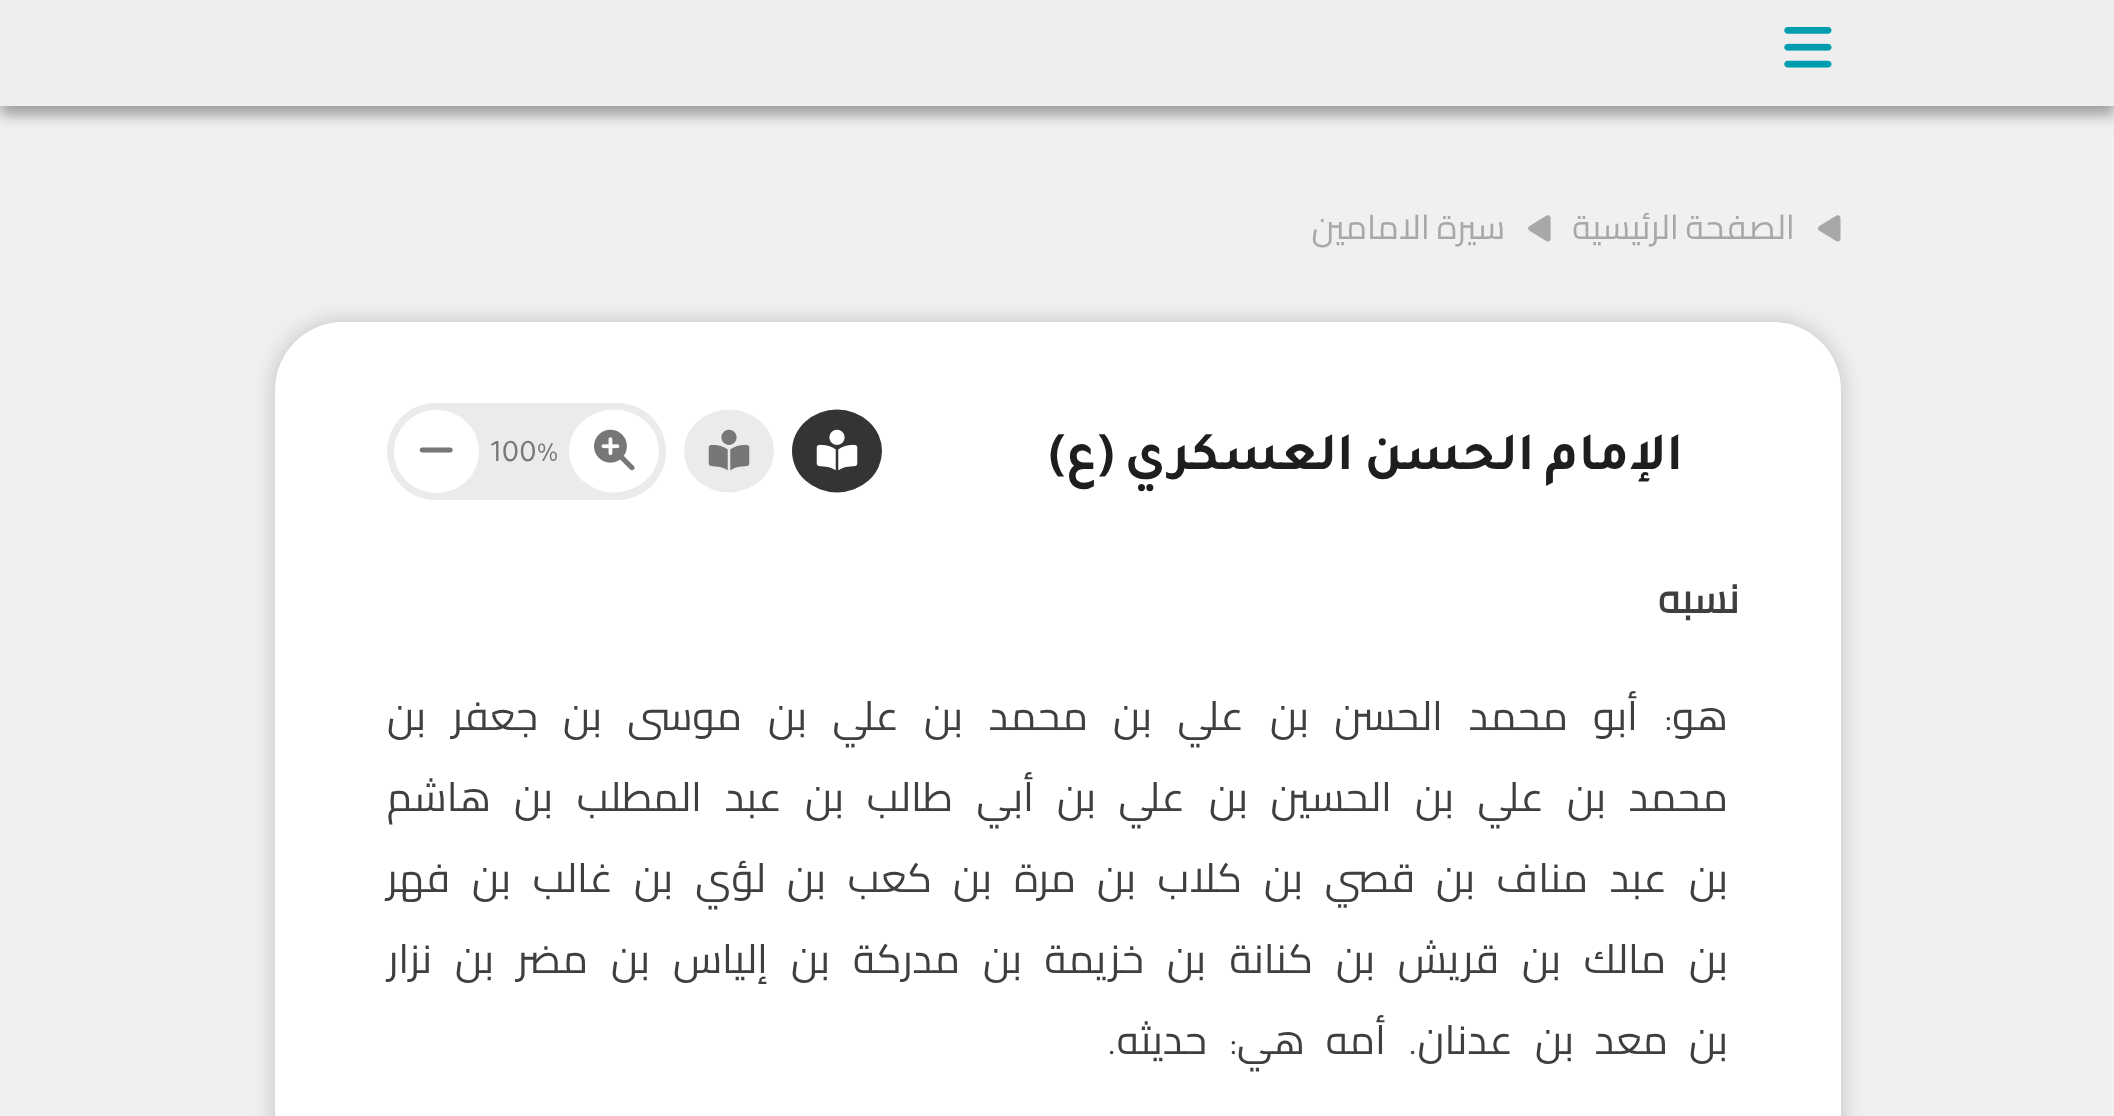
<svg xmlns="http://www.w3.org/2000/svg" width="2114" height="1116" viewBox="0 0 2114 1116">
  <rect width="100%" height="100%" fill="#f0f0f0"/>
  <path d="M0 9h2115v106H0z" fill="#27272769" filter="blur(7px)"/>
  <path d="M0 0h2114v106H0z" fill="#eee"/>
  <image x="1784" y="27" width="48" height="41" href="img/1.png"/>
  <image x="1818" y="215" width="23" height="27" href="img/2.png"/>
  <image x="1528" y="215" width="23" height="27" href="img/3.png"/>
  <rect x="275" y="322" width="1566" height="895" rx="68" fill="#00000033" filter="blur(11px)"/>
  <rect x="275" y="322" width="1566" height="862" rx="68" fill="#fff"/>
  <ellipse cx="837" cy="451" rx="45" ry="41.5" fill="#343434"/>
  <image x="816" y="429" width="42" height="42" href="img/4.png"/>
  <ellipse cx="729" cy="451" rx="45" ry="41.5" fill="#ebebeb"/>
  <image x="708" y="429" width="42" height="42" href="img/5.png"/>
  <rect x="387" y="403" width="279" height="97" rx="48.5" fill="#ebebeb"/>
  <ellipse cx="614" cy="451" rx="45" ry="41.5" fill="#fff"/>
  <image x="594" y="429" width="41" height="42" href="img/6.png"/>
  <rect x="394" y="410" width="85" height="83" rx="41.5" fill="#fff"/>
  <image x="419" y="447" width="34" height="6" href="img/7.png"/>
  <g font-family="Cairo" font-size="34" direction="rtl" fill="#a8a8a8">
    <text x="1795" y="239">الصفحة</text>
    <text x="1679" y="239">الرئيسية</text>
    <text x="1505" y="239">سيرة</text>
    <text x="1430" y="239">الامامين</text>
  </g>
  <text x="1683" y="469" word-spacing="-2" font-family="Tajawal" font-size="54" font-weight="bold" direction="rtl" fill="#1e1e1e">الإمام الحسن العسكري (ع)</text>
  <text x="490" y="461" font-family="Tajawal" font-size="31.5" fill="#777">100%</text>
  <text x="1739" y="613" font-family="Cairo" font-size="40.5" font-weight="bold" direction="rtl" fill="#3f3f3f">نسبه</text>
  <text x="1728" y="730" font-family="Cairo" font-size="40.5" direction="rtl" fill="#3f3f3f">هو</text>
  <text x="1672" y="730" font-family="Tajawal" font-size="40.5" direction="rtl" fill="#3f3f3f">:</text>
  <g font-family="Cairo" font-size="40.5" direction="rtl" fill="#3f3f3f">
    <text x="1638" y="730">أبو</text>
    <text x="1568" y="730">محمد</text>
    <text x="1443" y="730">الحسن</text>
    <text x="1309" y="730">بن</text>
    <text x="1244" y="730">علي</text>
    <text x="1152" y="730">بن</text>
    <text x="1088" y="730">محمد</text>
    <text x="963" y="730">بن</text>
    <text x="899" y="730">علي</text>
    <text x="807" y="730">بن</text>
    <text x="742" y="730">موسى</text>
    <text x="602" y="730">بن</text>
    <text x="538" y="730">جعفر</text>
    <text x="426" y="730">بن</text>
    <text x="1728" y="811">محمد</text>
    <text x="1606" y="811">بن</text>
    <text x="1544" y="811">علي</text>
    <text x="1454" y="811">بن</text>
    <text x="1392" y="811">الحسين</text>
    <text x="1248" y="811">بن</text>
    <text x="1185" y="811">علي</text>
    <text x="1096" y="811">بن</text>
    <text x="1034" y="811">أبي</text>
    <text x="953" y="811">طالب</text>
    <text x="844" y="811">بن</text>
    <text x="782" y="811">عبد</text>
    <text x="702" y="811">المطلب</text>
    <text x="553" y="811">بن</text>
    <text x="491" y="811">هاشم</text>
    <text x="1728" y="892">بن</text>
    <text x="1667" y="892">عبد</text>
    <text x="1588" y="892">مناف</text>
    <text x="1475" y="892">بن</text>
    <text x="1415" y="892">قصي</text>
    <text x="1303" y="892">بن</text>
    <text x="1242" y="892">كلاب</text>
    <text x="1136" y="892">بن</text>
    <text x="1076" y="892">مرة</text>
    <text x="992" y="892">بن</text>
    <text x="932" y="892">كعب</text>
    <text x="826" y="892">بن</text>
    <text x="766" y="892">لؤي</text>
    <text x="673" y="892">بن</text>
    <text x="613" y="892">غالب</text>
    <text x="511" y="892">بن</text>
    <text x="450" y="892">فهر</text>
    <text x="1728" y="973">بن</text>
    <text x="1666" y="973">مالك</text>
    <text x="1561" y="973">بن</text>
    <text x="1499" y="973">قريش</text>
    <text x="1375" y="973">بن</text>
    <text x="1313" y="973">كنانة</text>
    <text x="1206" y="973">بن</text>
    <text x="1144" y="973">خزيمة</text>
    <text x="1022" y="973">بن</text>
    <text x="960" y="973">مدركة</text>
    <text x="830" y="973">بن</text>
    <text x="768" y="973">إلياس</text>
    <text x="650" y="973">بن</text>
    <text x="588" y="973">مضر</text>
    <text x="494" y="973">بن</text>
    <text x="432" y="973">نزار</text>
    <text x="1728" y="1054">بن</text>
    <text x="1668" y="1054">معد</text>
    <text x="1574" y="1054">بن</text>
    <text x="1513" y="1054">عدنان</text>
  </g>
  <text x="1418" y="1054" font-family="Tajawal" font-size="40.5" direction="rtl" fill="#3f3f3f">.</text>
  <g font-family="Cairo" font-size="40.5" direction="rtl" fill="#3f3f3f">
    <text x="1386" y="1054">أمه</text>
    <text x="1305" y="1054">هي</text>
  </g>
  <text x="1237" y="1054" font-family="Tajawal" font-size="40.5" direction="rtl" fill="#3f3f3f">:</text>
  <text x="1207" y="1054" font-family="Cairo" font-size="40.5" direction="rtl" fill="#3f3f3f">حديثه</text>
  <text x="1117" y="1054" font-family="Tajawal" font-size="40.5" direction="rtl" fill="#3f3f3f">.</text>
</svg>
